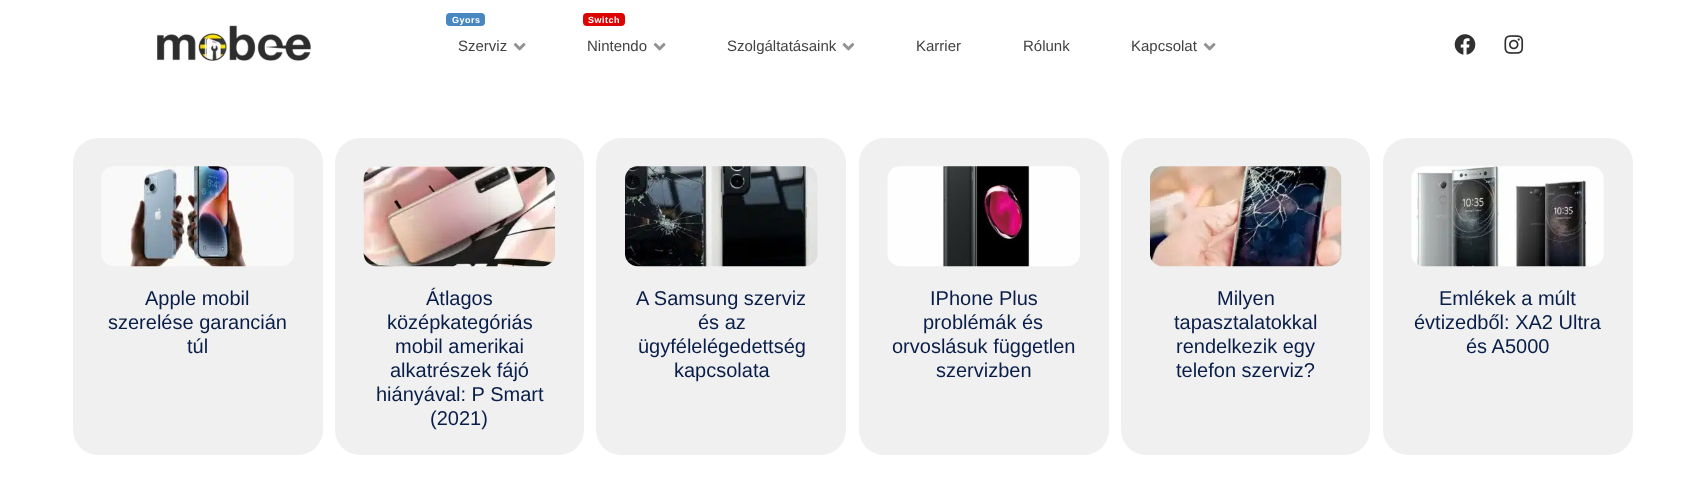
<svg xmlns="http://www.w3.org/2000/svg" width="1705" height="501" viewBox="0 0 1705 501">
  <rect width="100%" height="100%" fill="#fff"/>
  <image x="157" y="25" width="154" height="37" href="img/1.png"/>
  <rect x="446" y="13" width="39" height="13" rx="4" fill="#4887bf"/>
  <image x="513" y="43" width="13" height="8" href="img/2.png"/>
  <rect x="583" y="13" width="42" height="13" rx="4" fill="#dd0404"/>
  <image x="653" y="43" width="13" height="8" href="img/2.png"/>
  <image x="842" y="43" width="13" height="8" href="img/3.png"/>
  <image x="1203" y="43" width="13" height="8" href="img/2.png"/>
  <image x="1454" y="34" width="22" height="21" href="img/4.png"/>
  <image x="1504" y="35" width="20" height="19" href="img/5.png"/>
  <rect x="73" y="138" width="250" height="317" rx="25" fill="#f0f0f0"/>
  <image x="101" y="166" width="193" height="101" href="img/6.png"/>
  <rect x="335" y="138" width="249" height="317" rx="25" fill="#f0f0f0"/>
  <image x="363" y="166" width="192" height="101" href="img/7.png"/>
  <rect x="596" y="138" width="250" height="317" rx="25" fill="#f0f0f0"/>
  <image x="625" y="166" width="193" height="101" href="img/8.png"/>
  <rect x="859" y="138" width="250" height="317" rx="25" fill="#f0f0f0"/>
  <image x="887" y="166" width="193" height="101" href="img/9.png"/>
  <rect x="1121" y="138" width="249" height="317" rx="25" fill="#f0f0f0"/>
  <image x="1150" y="166" width="192" height="101" href="img/10.png"/>
  <rect x="1383" y="138" width="250" height="317" rx="25" fill="#f0f0f0"/>
  <image x="1411" y="166" width="193" height="101" href="img/11.png"/>
  <text x="452" y="23" font-family="Liberation Sans" font-size="9" font-weight="bold" letter-spacing="0.5" fill="#fff">Gyors</text>
  <text x="458" y="51" font-family="Liberation Sans" font-size="15" fill="#424242">Szerviz</text>
  <text x="588" y="23" font-family="Liberation Sans" font-size="9" font-weight="bold" letter-spacing="0.5" fill="#fff">Switch</text>
  <g font-family="Liberation Sans" font-size="15" fill="#424242">
    <text x="587" y="51">Nintendo</text>
    <text x="727" y="51">Szolgáltatásaink</text>
    <text x="916" y="51">Karrier</text>
    <text x="1023" y="51">Rólunk</text>
    <text x="1131" y="51">Kapcsolat</text>
  </g>
  <g font-family="Liberation Sans" font-size="20" fill="#081d48">
    <text x="145" y="305">Apple mobil</text>
    <text x="108" y="329">szerelése garancián</text>
    <text x="187" y="353">túl</text>
    <text x="426" y="305">Átlagos</text>
    <text x="387" y="329">középkategóriás</text>
    <text x="395" y="353">mobil amerikai</text>
    <text x="390" y="377">alkatrészek fájó</text>
    <text x="376" y="401">hiányával: P Smart</text>
    <text x="430" y="425">(2021)</text>
    <text x="636" y="305">A Samsung szerviz</text>
    <text x="698" y="329">és az</text>
    <text x="638" y="353">ügyfélelégedettség</text>
    <text x="674" y="377">kapcsolata</text>
    <text x="930" y="305">IPhone Plus</text>
    <text x="923" y="329">problémák és</text>
    <text x="892" y="353">orvoslásuk független</text>
    <text x="936" y="377">szervizben</text>
    <text x="1217" y="305">Milyen</text>
    <text x="1174" y="329">tapasztalatokkal</text>
    <text x="1176" y="353">rendelkezik egy</text>
    <text x="1176" y="377">telefon szerviz?</text>
    <text x="1439" y="305">Emlékek a múlt</text>
    <text x="1414" y="329">évtizedből: XA2 Ultra</text>
    <text x="1466" y="353">és A5000</text>
  </g>
</svg>
